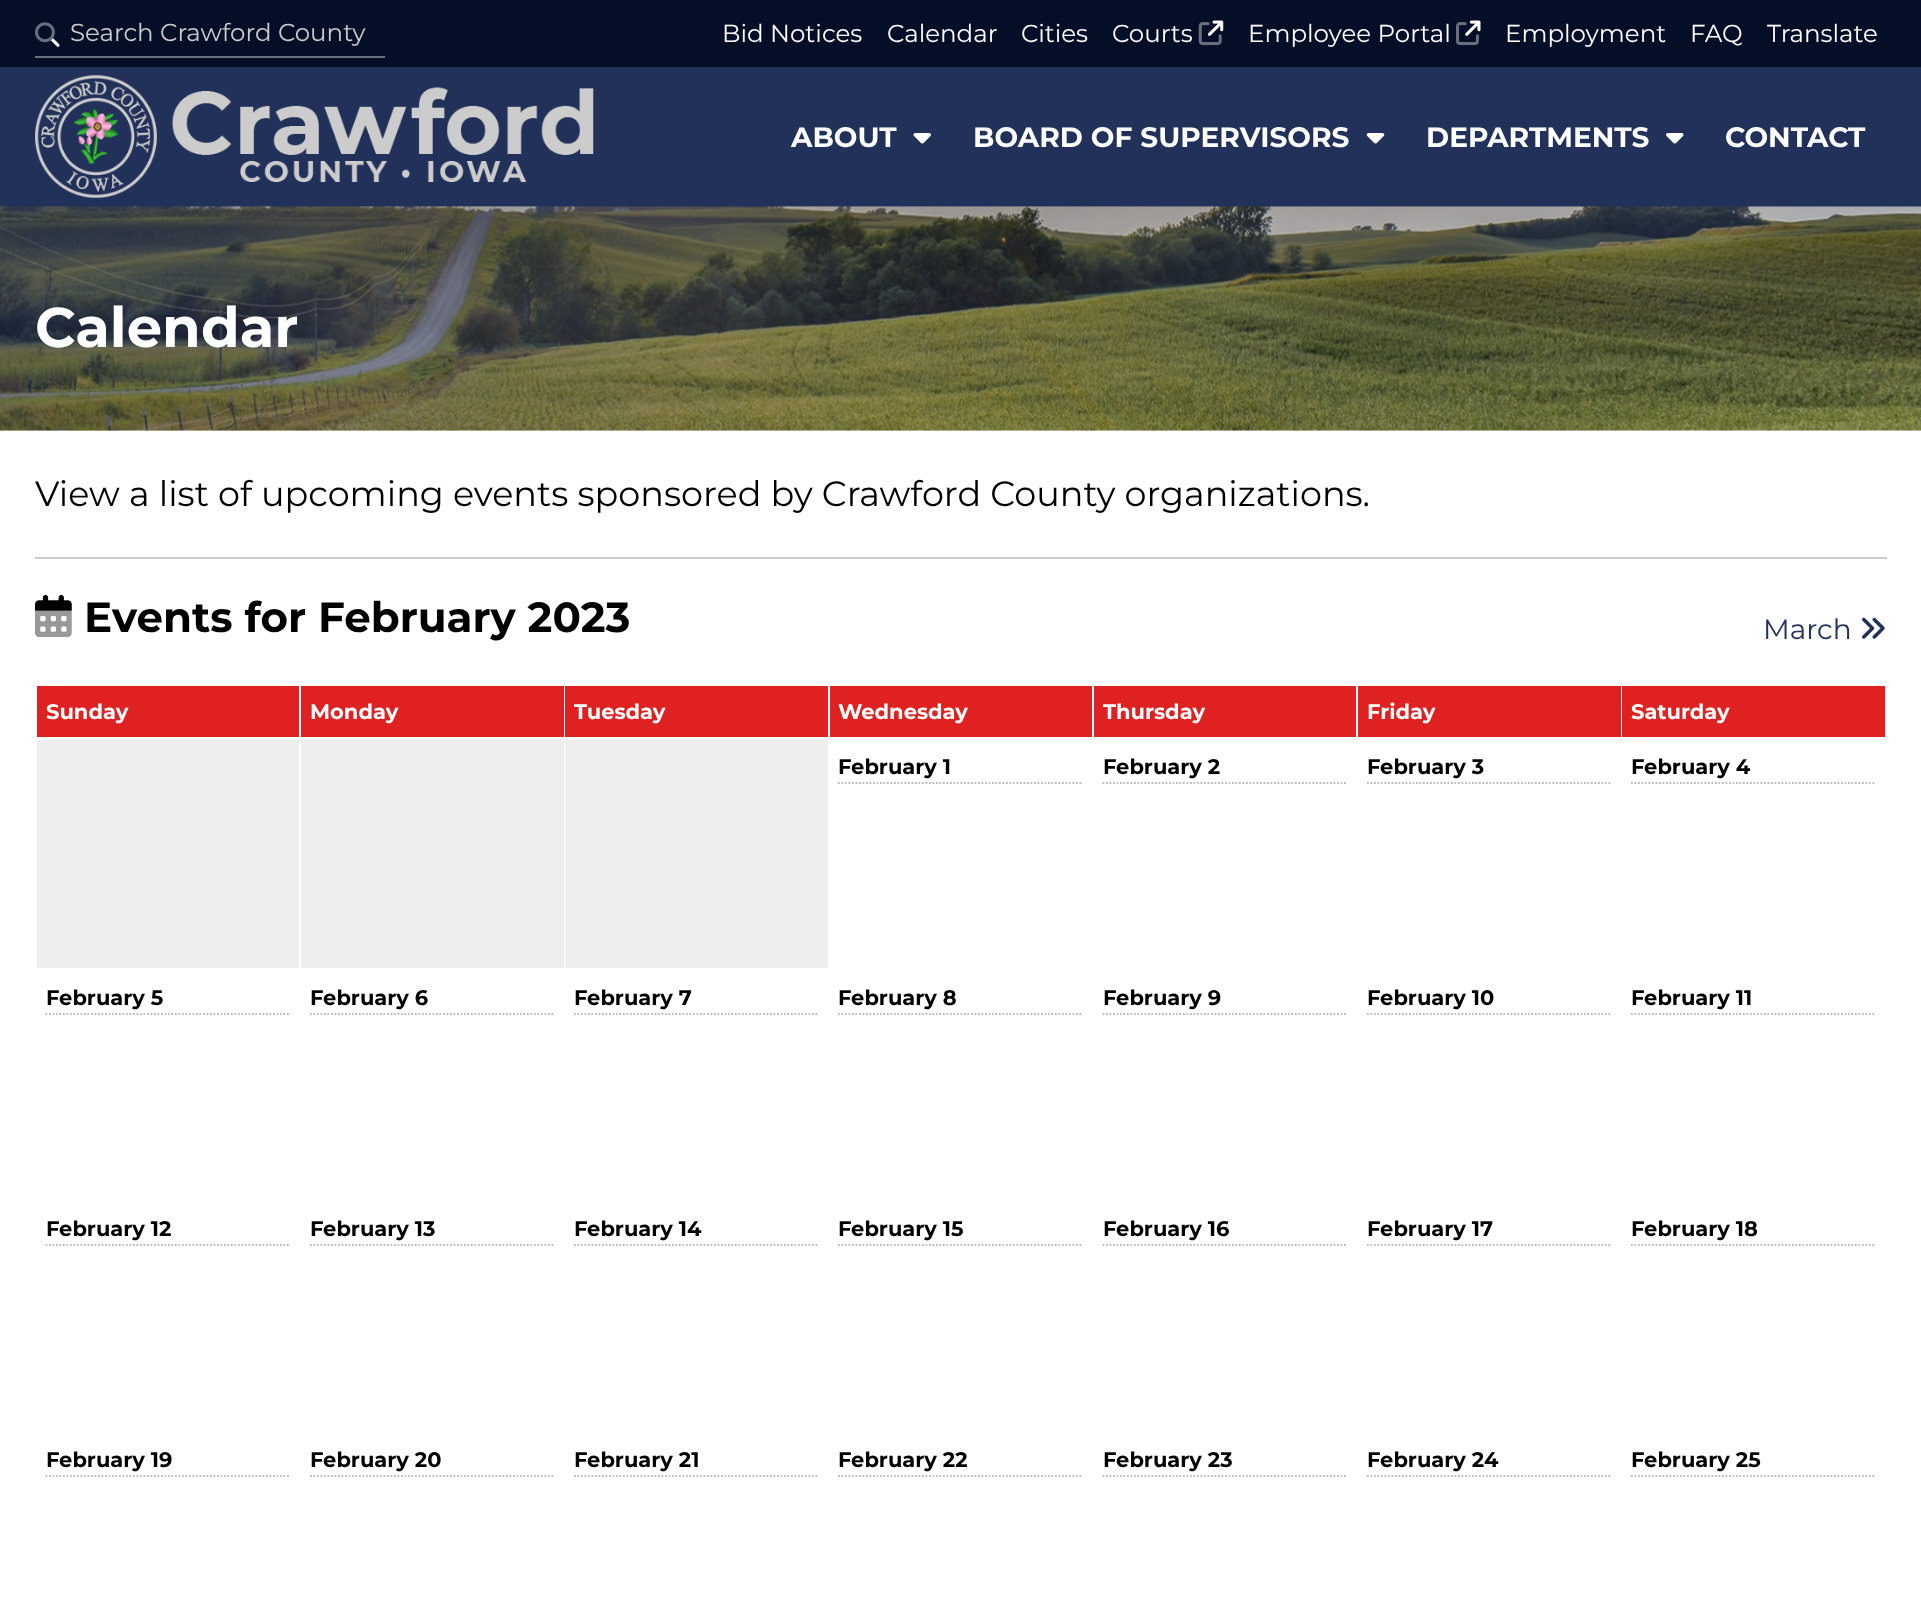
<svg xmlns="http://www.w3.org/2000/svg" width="1921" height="1617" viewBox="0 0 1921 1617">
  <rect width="100%" height="100%" fill="#fff"/>
  <path d="M0 0h1921v67H0z" fill="#040e27"/>
  <image x="50" y="38" width="10" height="9" href="img/2.png"/>
  <image x="35" y="22" width="20" height="21" href="img/1.png"/>
  <path d="M35 56h350v2H35z" fill="#686e7d"/>
  <image x="1207" y="20" width="17" height="16" href="img/3.png"/>
  <image x="1198" y="22" width="24" height="24" href="img/4.png"/>
  <image x="1465" y="20" width="16" height="16" href="img/5.png"/>
  <image x="1456" y="22" width="23" height="24" href="img/6.png"/>
  <path d="M0 67h1921v140H0z" fill="#213159"/>
  <image x="35" y="75" width="559" height="123" href="img/7.png"/>
  <image x="913" y="133" width="18" height="11" href="img/8.png"/>
  <image x="1366" y="133" width="19" height="11" href="img/9.png"/>
  <image x="1666" y="133" width="18" height="11" href="img/10.png"/>
  <image x="0" y="206" width="1921" height="225" href="img/11.png"/>
  <path d="M35 557h1852v2H35z" fill="#ccc"/>
  <image x="35" y="595" width="37" height="16" href="img/12.png"/>
  <image x="35" y="610" width="37" height="27" href="img/13.png"/>
  <image x="1862" y="617" width="23" height="22" href="img/14.png"/>
  <path d="M37 686h262v51H37z" fill="#e02121"/>
  <path d="M301 686h263v51H301z" fill="#e02121"/>
  <path d="M565 686h263v51H565z" fill="#e02121"/>
  <path d="M830 686h262v51H830z" fill="#e02121"/>
  <path d="M1094 686h262v51H1094z" fill="#e02121"/>
  <path d="M1358 686h263v51H1358z" fill="#e02121"/>
  <path d="M1622 686h263v51H1622z" fill="#e02121"/>
  <path d="M37 740h262v228H37z" fill="#eee"/>
  <path d="M301 740h263v228H301z" fill="#eee"/>
  <path d="M565 740h263v228H565z" fill="#eee"/>
  <path d="M838 783H1083" fill="none" stroke="#bbb" stroke-width="1.8" stroke-dasharray="1.75 1.75"/>
  <path d="M1102.5 783H1347.5" fill="none" stroke="#bbb" stroke-width="1.8" stroke-dasharray="1.75 1.75"/>
  <path d="M1367 783H1612" fill="none" stroke="#bbb" stroke-width="1.8" stroke-dasharray="1.75 1.75"/>
  <path d="M1631 783H1876" fill="none" stroke="#bbb" stroke-width="1.8" stroke-dasharray="1.75 1.75"/>
  <path d="M45.5 1014H290.5" fill="none" stroke="#bbb" stroke-width="1.8" stroke-dasharray="1.75 1.75"/>
  <path d="M310 1014H555" fill="none" stroke="#bbb" stroke-width="1.8" stroke-dasharray="1.75 1.75"/>
  <path d="M574 1014H819" fill="none" stroke="#bbb" stroke-width="1.8" stroke-dasharray="1.75 1.75"/>
  <path d="M838 1014H1083" fill="none" stroke="#bbb" stroke-width="1.8" stroke-dasharray="1.75 1.75"/>
  <path d="M1102.5 1014H1347.5" fill="none" stroke="#bbb" stroke-width="1.8" stroke-dasharray="1.75 1.75"/>
  <path d="M1367 1014H1612" fill="none" stroke="#bbb" stroke-width="1.8" stroke-dasharray="1.75 1.75"/>
  <path d="M1631 1014H1876" fill="none" stroke="#bbb" stroke-width="1.8" stroke-dasharray="1.75 1.75"/>
  <path d="M45.5 1245H290.5" fill="none" stroke="#bbb" stroke-width="1.8" stroke-dasharray="1.75 1.75"/>
  <path d="M310 1245H555" fill="none" stroke="#bbb" stroke-width="1.8" stroke-dasharray="1.75 1.75"/>
  <path d="M574 1245H819" fill="none" stroke="#bbb" stroke-width="1.8" stroke-dasharray="1.75 1.75"/>
  <path d="M838 1245H1083" fill="none" stroke="#bbb" stroke-width="1.8" stroke-dasharray="1.75 1.75"/>
  <path d="M1102.5 1245H1347.5" fill="none" stroke="#bbb" stroke-width="1.8" stroke-dasharray="1.75 1.75"/>
  <path d="M1367 1245H1612" fill="none" stroke="#bbb" stroke-width="1.8" stroke-dasharray="1.75 1.75"/>
  <path d="M1631 1245H1876" fill="none" stroke="#bbb" stroke-width="1.8" stroke-dasharray="1.75 1.75"/>
  <path d="M45.5 1476H290.5" fill="none" stroke="#bbb" stroke-width="1.8" stroke-dasharray="1.75 1.75"/>
  <path d="M310 1476H555" fill="none" stroke="#bbb" stroke-width="1.8" stroke-dasharray="1.75 1.75"/>
  <path d="M574 1476H819" fill="none" stroke="#bbb" stroke-width="1.8" stroke-dasharray="1.75 1.75"/>
  <path d="M838 1476H1083" fill="none" stroke="#bbb" stroke-width="1.8" stroke-dasharray="1.75 1.75"/>
  <path d="M1102.5 1476H1347.5" fill="none" stroke="#bbb" stroke-width="1.8" stroke-dasharray="1.75 1.75"/>
  <path d="M1367 1476H1612" fill="none" stroke="#bbb" stroke-width="1.8" stroke-dasharray="1.75 1.75"/>
  <path d="M1631 1476H1876" fill="none" stroke="#bbb" stroke-width="1.8" stroke-dasharray="1.75 1.75"/>
  <text x="70" y="41" font-family="Montserrat" font-size="24.5" fill="#ccc">Search Crawford County</text>
  <g font-family="Montserrat" font-size="24.5" fill="#fff">
    <text x="722" y="42">Bid Notices</text>
    <text x="887" y="42">Calendar</text>
    <text x="1021" y="42">Cities</text>
    <text x="1112" y="42">Courts</text>
    <text x="1248" y="42">Employee Portal</text>
    <text x="1505" y="42">Employment</text>
    <text x="1690" y="42">FAQ</text>
    <text x="1767" y="42">Translate</text>
  </g>
  <g font-family="Montserrat" font-size="28" font-weight="bold" fill="#fff">
    <text x="791" y="147">ABOUT</text>
    <text x="973" y="147">BOARD OF SUPERVISORS</text>
    <text x="1426" y="147">DEPARTMENTS</text>
    <text x="1725" y="147">CONTACT</text>
  </g>
  <text x="35" y="347" font-family="Montserrat" font-size="56" font-weight="bold" fill="#fff">Calendar</text>
  <text x="35" y="506" font-family="Montserrat" font-size="35" fill="#000">View a list of upcoming events sponsored by Crawford County organizations.</text>
  <text x="84" y="632" font-family="Montserrat" font-size="42" font-weight="bold" fill="#000">Events for February 2023</text>
  <text x="1763" y="639" font-family="Montserrat" font-size="28" fill="#213159">March</text>
  <g font-family="Montserrat" font-size="21" font-weight="bold" fill="#fff">
    <text x="46" y="719">Sunday</text>
    <text x="310" y="719">Monday</text>
    <text x="574" y="719">Tuesday</text>
    <text x="838" y="719">Wednesday</text>
    <text x="1103" y="719">Thursday</text>
    <text x="1367" y="719">Friday</text>
    <text x="1631" y="719">Saturday</text>
  </g>
  <g font-family="Montserrat" font-size="21" font-weight="bold" fill="#000">
    <text x="838" y="774">February 1</text>
    <text x="1103" y="774">February 2</text>
    <text x="1367" y="774">February 3</text>
    <text x="1631" y="774">February 4</text>
    <text x="46" y="1005">February 5</text>
    <text x="310" y="1005">February 6</text>
    <text x="574" y="1005">February 7</text>
    <text x="838" y="1005">February 8</text>
    <text x="1103" y="1005">February 9</text>
    <text x="1367" y="1005">February 10</text>
    <text x="1631" y="1005">February 11</text>
    <text x="46" y="1236">February 12</text>
    <text x="310" y="1236">February 13</text>
    <text x="574" y="1236">February 14</text>
    <text x="838" y="1236">February 15</text>
    <text x="1103" y="1236">February 16</text>
    <text x="1367" y="1236">February 17</text>
    <text x="1631" y="1236">February 18</text>
    <text x="46" y="1467">February 19</text>
    <text x="310" y="1467">February 20</text>
    <text x="574" y="1467">February 21</text>
    <text x="838" y="1467">February 22</text>
    <text x="1103" y="1467">February 23</text>
    <text x="1367" y="1467">February 24</text>
    <text x="1631" y="1467">February 25</text>
  </g>
</svg>
